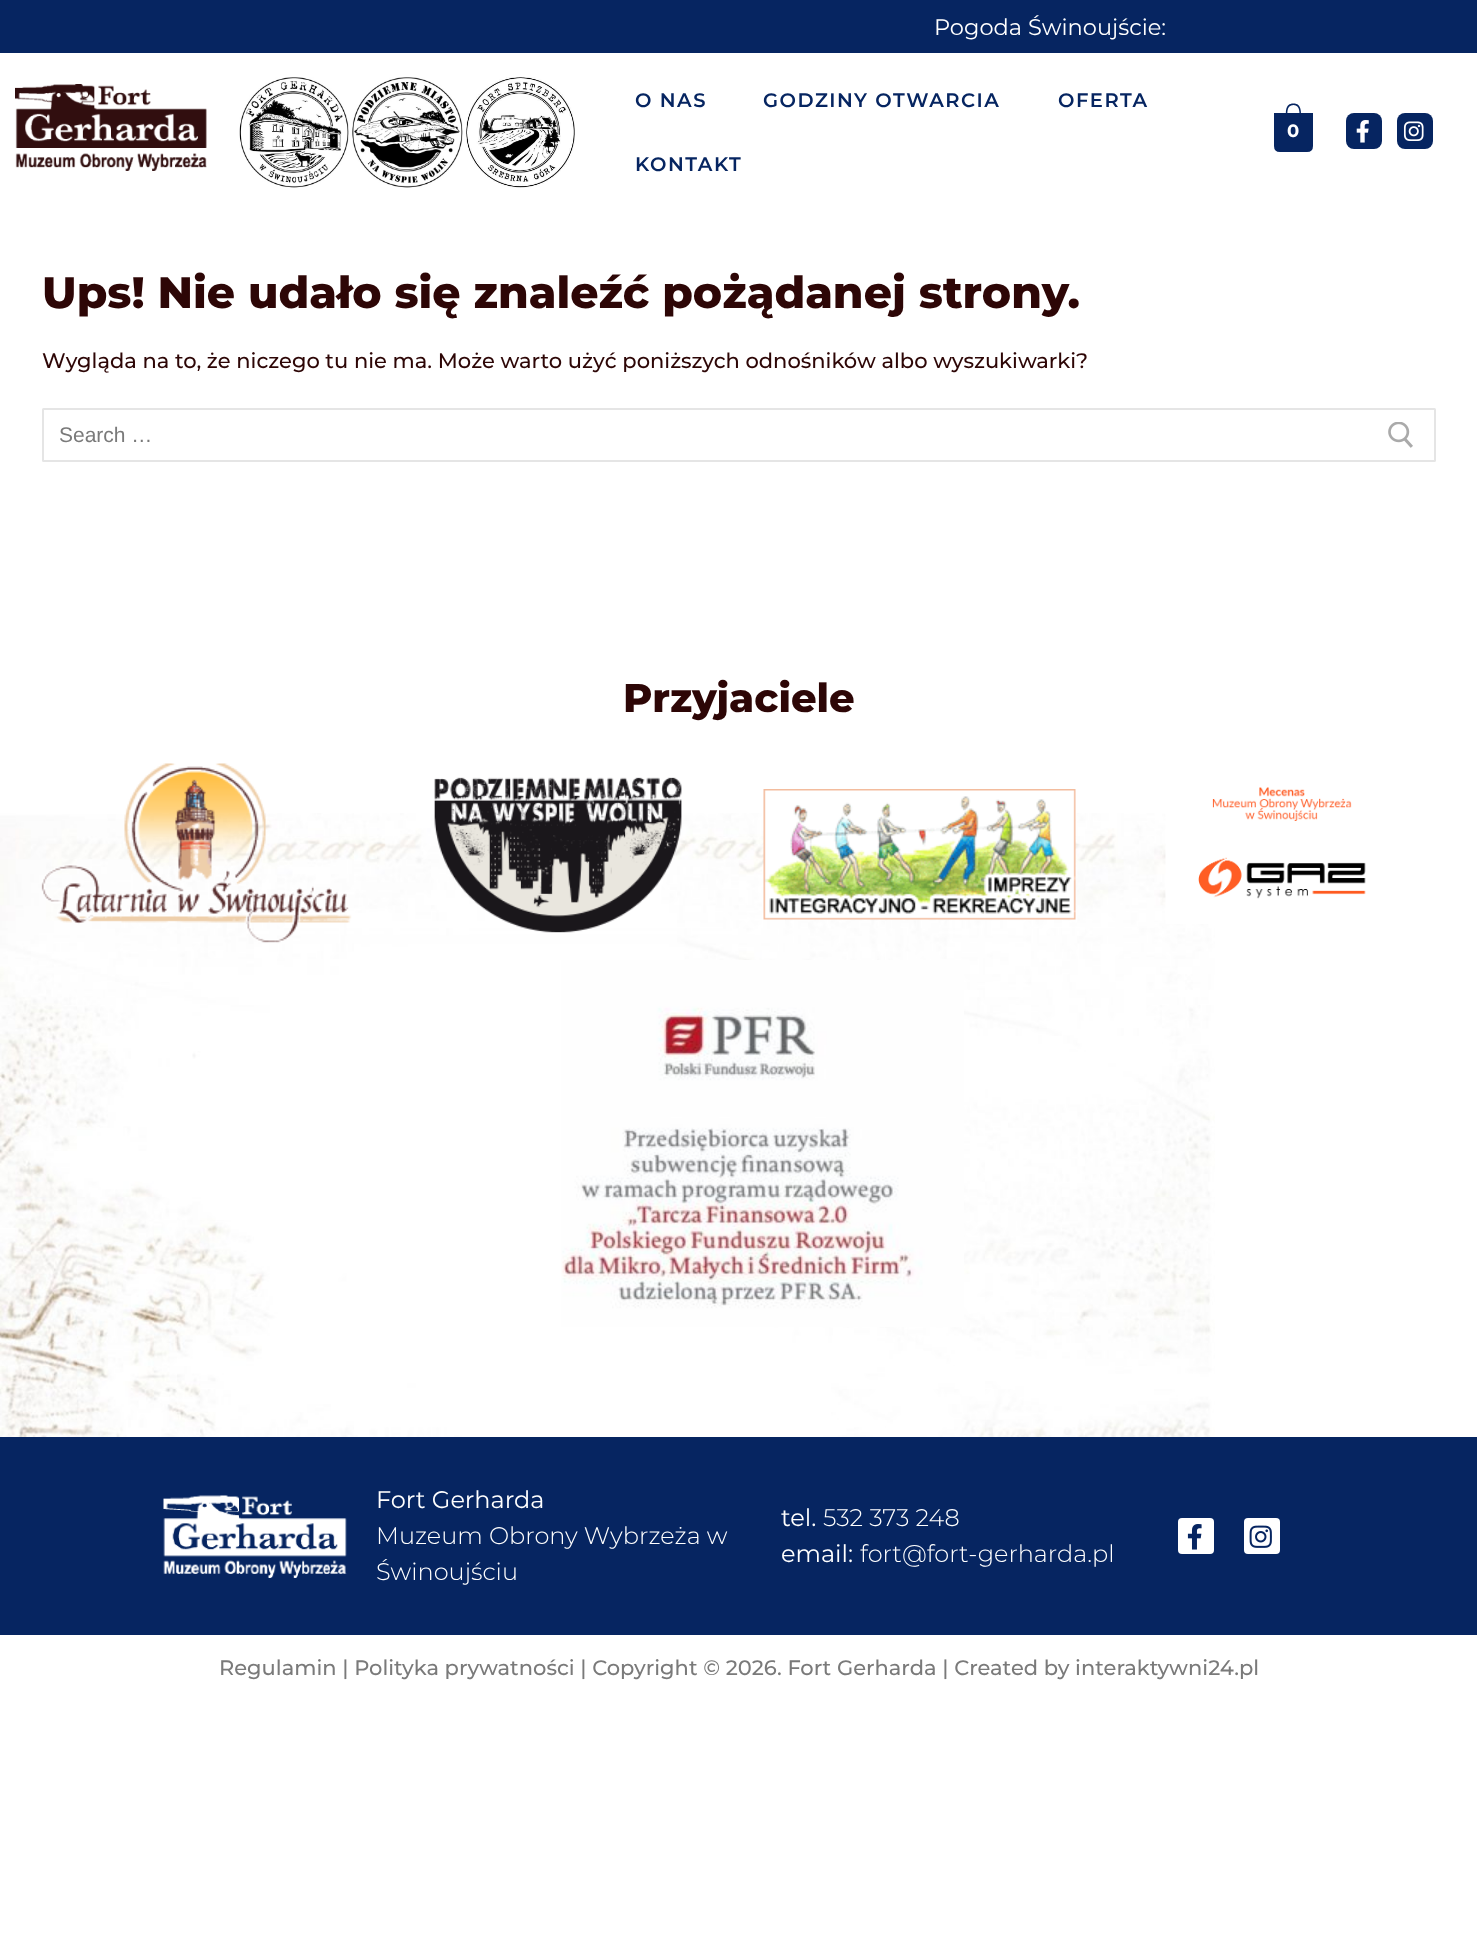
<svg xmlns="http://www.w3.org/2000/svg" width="1477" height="1942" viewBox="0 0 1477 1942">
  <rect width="100%" height="100%" fill="#fff"/>
  <path d="M0 0h1477v53H0z" fill="#062561"/>
  <image x="15" y="84" width="192" height="87" href="img/1.png"/>
  <image x="239" y="77" width="110" height="111" href="img/2.png"/>
  <image x="352" y="77" width="111" height="111" href="img/3.png"/>
  <image x="466" y="77" width="109" height="111" href="img/4.png"/>
  <path d="M1275 114H1312V146C1312 149 1310 151 1307 151H1280C1277 151 1275 149 1275 146Z" fill="#062561" stroke="#062561" stroke-width="2"/>
  <path d="M1293.5 103.5C1302 103.5 1301 112.5 1301 118.5H1286C1286 112.5 1284.5 103.5 1293.5 103.5ZM1293.5 105C1300.5 105 1299.5 113.5 1299.5 118.5H1287.5C1287.5 113.5 1286 105 1293.5 105Z" fill="#062561" fill-rule="evenodd"/>
  <rect x="1346" y="113" width="36" height="36" rx="8" fill="#062561"/>
  <image x="1356" y="120" width="13" height="23" href="img/5.png"/>
  <rect x="1397" y="113" width="36" height="36" rx="8" fill="#062561"/>
  <image x="1403" y="121" width="21" height="20" href="img/6.png"/>
  <rect x="43" y="409" width="1392" height="52" rx="0.5" fill="none" stroke="#e5e5e5" stroke-width="2"/>
  <image x="1388" y="422" width="25" height="26" href="img/7.png"/>
  <image x="0" y="813" width="1215" height="624" href="img/13.png"/>
  <image x="41" y="763" width="311" height="180" href="img/8.png"/>
  <image x="434" y="777" width="248" height="156" href="img/9.png"/>
  <image x="763" y="789" width="313" height="131" href="img/10.png"/>
  <image x="1165" y="787" width="201" height="137" href="img/11.png"/>
  <image x="561" y="960" width="403" height="367" href="img/12.png"/>
  <path d="M0 1437h1477v198H0z" fill="#062561"/>
  <image x="163" y="1495" width="184" height="83" href="img/14.png"/>
  <rect x="1178" y="1518" width="36" height="36" rx="4" fill="#fff"/>
  <image x="1187" y="1524" width="15" height="26" href="img/15.png"/>
  <rect x="1244" y="1518" width="36" height="36" rx="4" fill="#fff"/>
  <image x="1249" y="1525" width="23" height="23" href="img/16.png"/>
  <text x="934" y="35" font-family="Montserrat" font-size="22.5" fill="#fff">Pogoda Świnoujście:</text>
  <g font-family="Montserrat" font-size="19.5" font-weight="600" letter-spacing="1.5" fill="#062561">
    <text x="635" y="107">O NAS</text>
    <text x="763" y="107">GODZINY OTWARCIA</text>
    <text x="1058" y="107">OFERTA</text>
    <text x="635" y="171">KONTAKT</text>
  </g>
  <text x="1287" y="137" font-family="Montserrat" font-size="18" font-weight="bold" fill="#fff">0</text>
  <text x="42" y="308" font-family="Montserrat" font-size="44.1" font-weight="800" fill="#2d0606">Ups! Nie udało się znaleźć pożądanej strony.</text>
  <text x="42" y="368" font-family="Montserrat" font-size="21" font-weight="500" fill="#2d0606">Wygląda na to, że niczego tu nie ma. Może warto użyć poniższych odnośników albo wyszukiwarki?</text>
  <text x="59" y="442" font-family="Liberation Sans" font-size="21" fill="#7a7a7a">Search …</text>
  <text x="623" y="712" font-family="Montserrat" font-size="40" font-weight="800" fill="#2d0606">Przyjaciele</text>
  <text x="376" y="1508" font-family="Montserrat" font-size="24" fill="#fff">Fort Gerharda</text>
  <g font-family="Montserrat" font-size="24" font-weight="300" fill="#fff">
    <text x="376" y="1544">Muzeum Obrony Wybrzeża w</text>
    <text x="376" y="1580">Świnoujściu</text>
  </g>
  <text x="781" y="1526" font-family="Montserrat" font-size="24" fill="#fff">tel.</text>
  <text x="823" y="1526" font-family="Montserrat" font-size="24" font-weight="300" fill="#fff">532 373 248</text>
  <text x="781" y="1562" font-family="Montserrat" font-size="24" fill="#fff">email:</text>
  <text x="860" y="1562" font-family="Montserrat" font-size="24" font-weight="300" fill="#fff">fort@fort-gerharda.pl</text>
  <text x="219" y="1675" font-family="Montserrat" font-size="21" font-weight="500" fill="#7a7a7a">Regulamin | Polityka prywatności | Copyright © 2026. Fort Gerharda | Created by interaktywni24.pl</text>
</svg>
